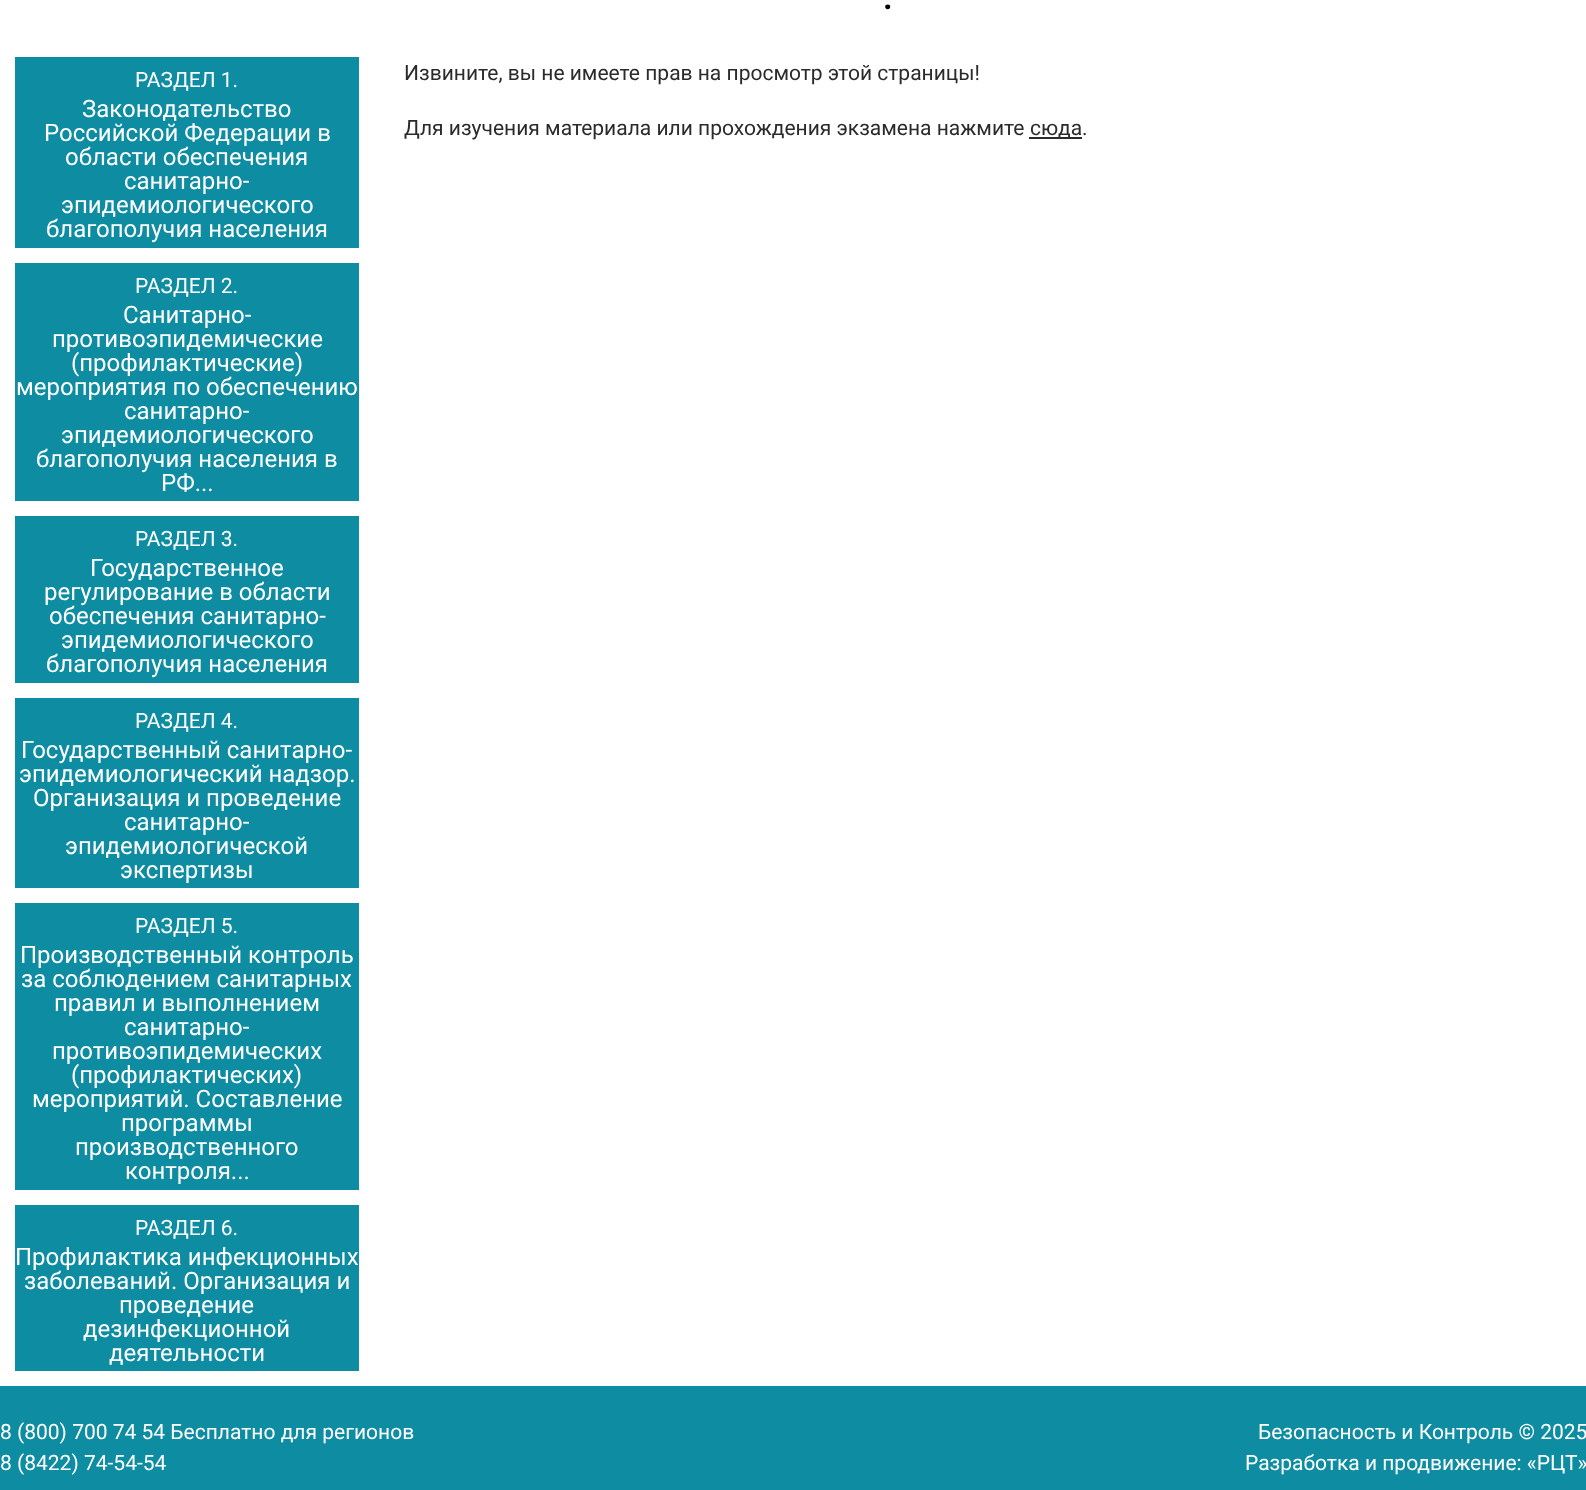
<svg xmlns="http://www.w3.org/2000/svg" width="1586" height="1490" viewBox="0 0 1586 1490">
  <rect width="100%" height="100%" fill="#fff"/>
  <path d="M15 57h344v191H15z" fill="#0e8ca2"/>
  <path d="M15 263h344v238H15z" fill="#0e8ca2"/>
  <path d="M15 516h344v167H15z" fill="#0e8ca2"/>
  <path d="M15 698h344v190H15z" fill="#0e8ca2"/>
  <path d="M15 903h344v287H15z" fill="#0e8ca2"/>
  <path d="M15 1205h344v166H15z" fill="#0e8ca2"/>
  <path d="M1029 137h53v2H1029z" fill="#2b2b2b"/>
  <path d="M0 1386h1586v104H0z" fill="#0e8ca2"/>
  <text x="882" y="9" font-family="Roboto" font-size="45" fill="#000">.</text>
  <text x="135" y="87" font-family="Roboto" font-size="21" fill="#fff">РАЗДЕЛ 1.</text>
  <g font-family="Roboto" font-size="24" fill="#fff">
    <text x="82" y="117">Законодательство</text>
    <text x="44" y="141">Российской Федерации в</text>
    <text x="65" y="165">области обеспечения</text>
    <text x="124" y="189">санитарно-</text>
    <text x="61" y="213">эпидемиологического</text>
    <text x="46" y="237">благополучия населения</text>
  </g>
  <text x="135" y="293" font-family="Roboto" font-size="21" fill="#fff">РАЗДЕЛ 2.</text>
  <g font-family="Roboto" font-size="24" fill="#fff">
    <text x="123" y="323">Санитарно-</text>
    <text x="52" y="347">противоэпидемические</text>
    <text x="71" y="371">(профилактические)</text>
    <text x="16" y="395">мероприятия по обеспечению</text>
    <text x="124" y="419">санитарно-</text>
    <text x="61" y="443">эпидемиологического</text>
    <text x="36" y="467">благополучия населения в</text>
    <text x="161" y="491">РФ...</text>
  </g>
  <text x="135" y="546" font-family="Roboto" font-size="21" fill="#fff">РАЗДЕЛ 3.</text>
  <g font-family="Roboto" font-size="24" fill="#fff">
    <text x="90" y="576">Государственное</text>
    <text x="44" y="600">регулирование в области</text>
    <text x="49" y="624">обеспечения санитарно-</text>
    <text x="61" y="648">эпидемиологического</text>
    <text x="46" y="672">благополучия населения</text>
  </g>
  <text x="135" y="728" font-family="Roboto" font-size="21" fill="#fff">РАЗДЕЛ 4.</text>
  <g font-family="Roboto" font-size="24" fill="#fff">
    <text x="21" y="758">Государственный санитарно-</text>
    <text x="19" y="782">эпидемиологический надзор.</text>
    <text x="33" y="806">Организация и проведение</text>
    <text x="124" y="830">санитарно-</text>
    <text x="65" y="854">эпидемиологической</text>
    <text x="120" y="878">экспертизы</text>
  </g>
  <text x="135" y="933" font-family="Roboto" font-size="21" fill="#fff">РАЗДЕЛ 5.</text>
  <g font-family="Roboto" font-size="24" fill="#fff">
    <text x="20" y="963">Производственный контроль</text>
    <text x="21" y="987">за соблюдением санитарных</text>
    <text x="54" y="1011">правил и выполнением</text>
    <text x="124" y="1035">санитарно-</text>
    <text x="52" y="1059">противоэпидемических</text>
    <text x="71" y="1083">(профилактических)</text>
    <text x="32" y="1107">мероприятий. Составление</text>
    <text x="121" y="1131">программы</text>
    <text x="75" y="1155">производственного</text>
    <text x="125" y="1179">контроля...</text>
  </g>
  <text x="135" y="1235" font-family="Roboto" font-size="21" fill="#fff">РАЗДЕЛ 6.</text>
  <g font-family="Roboto" font-size="24" fill="#fff">
    <text x="15" y="1265">Профилактика инфекционных</text>
    <text x="24" y="1289">заболеваний. Организация и</text>
    <text x="119" y="1313">проведение</text>
    <text x="83" y="1337">дезинфекционной</text>
    <text x="109" y="1361">деятельности</text>
  </g>
  <g font-family="Roboto" font-size="21" fill="#2b2b2b">
    <text x="404" y="80">Извините, вы не имеете прав на просмотр этой страницы!</text>
    <text x="404" y="135">Для изучения материала или прохождения экзамена нажмите</text>
    <text x="1030" y="135">сюда.</text>
  </g>
  <g font-family="Roboto" font-size="21" fill="#fff">
    <text x="0" y="1439">8 (800) 700 74 54 Бесплатно для регионов</text>
    <text x="0" y="1470">8 (8422) 74-54-54</text>
    <text x="1258" y="1439">Безопасность и Контроль © 2025</text>
    <text x="1245" y="1470">Разработка и продвижение: «РЦТ»</text>
  </g>
</svg>
